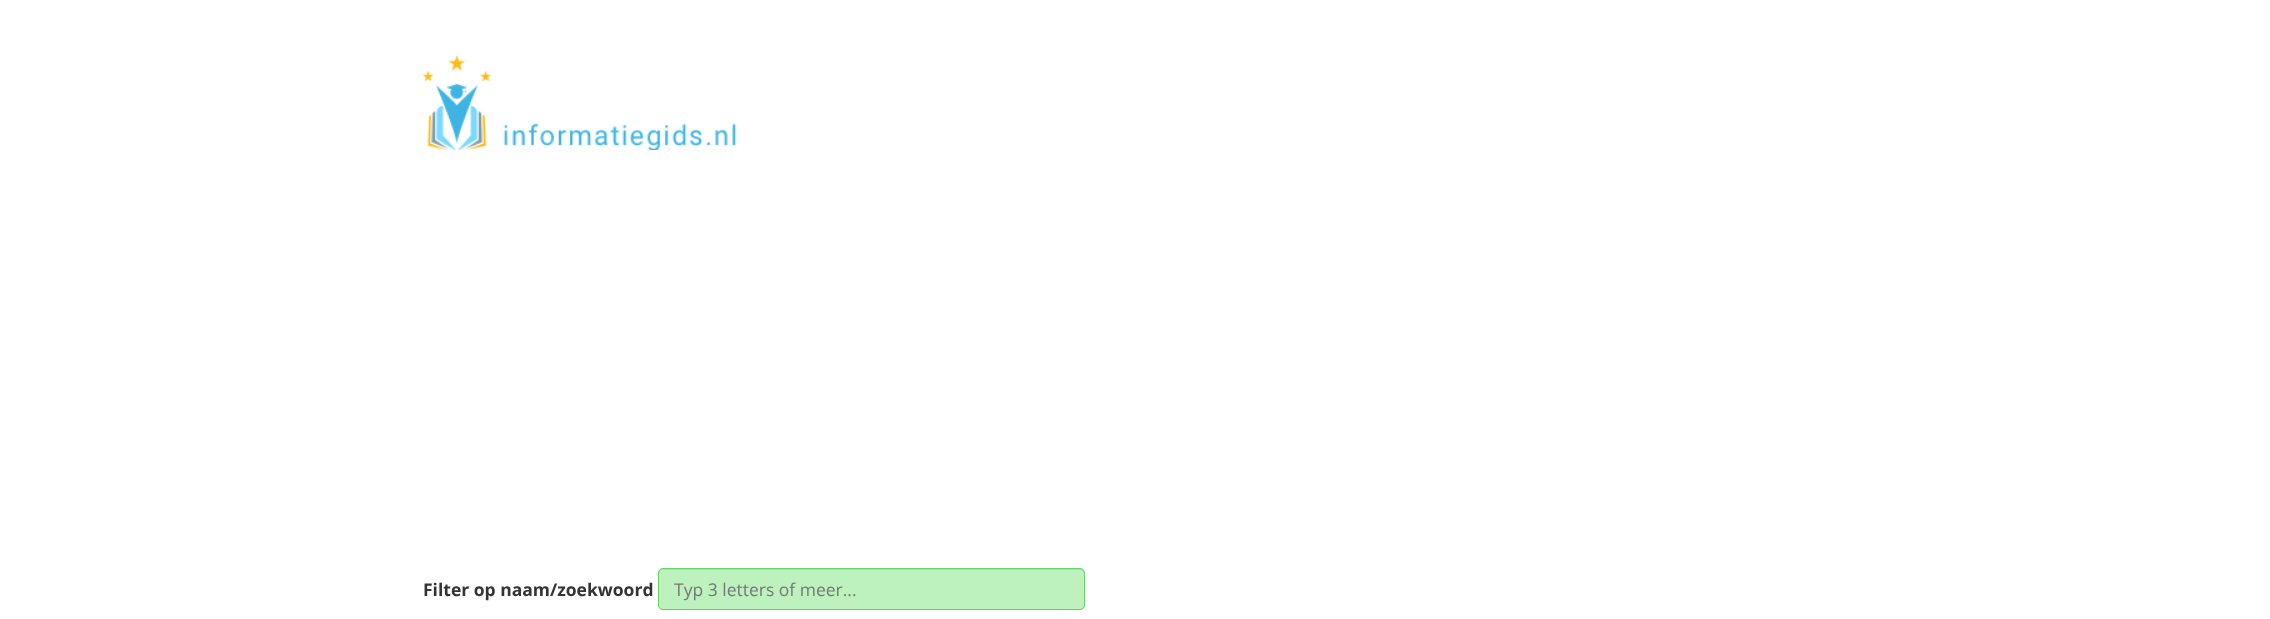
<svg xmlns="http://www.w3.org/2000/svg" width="2270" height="619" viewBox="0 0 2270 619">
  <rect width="100%" height="100%" fill="#fff"/>
  <image x="422" y="55" width="315" height="95" href="img/1.png"/>
  <rect x="658" y="568" width="427" height="42" rx="5" fill="#bdf1bd"/>
  <path d="M662 570H1080C1082 570 1084 572 1084 574C1084 571 1083 569 1080 569H663C662 569 660 570 660 571L659 574C659 572 660 570 662 570Z" fill="#afdfaf"/>
  <rect x="658.5" y="568.5" width="426" height="41" rx="4.5" fill="none" stroke="#61d761"/>
  <text x="423" y="596" font-family="Open Sans" font-size="17.5" font-weight="bold" fill="#333">Filter op naam/zoekwoord</text>
  <text x="674" y="596" font-family="Open Sans" font-size="17.5" fill="#777">Typ 3 letters of meer...</text>
</svg>
